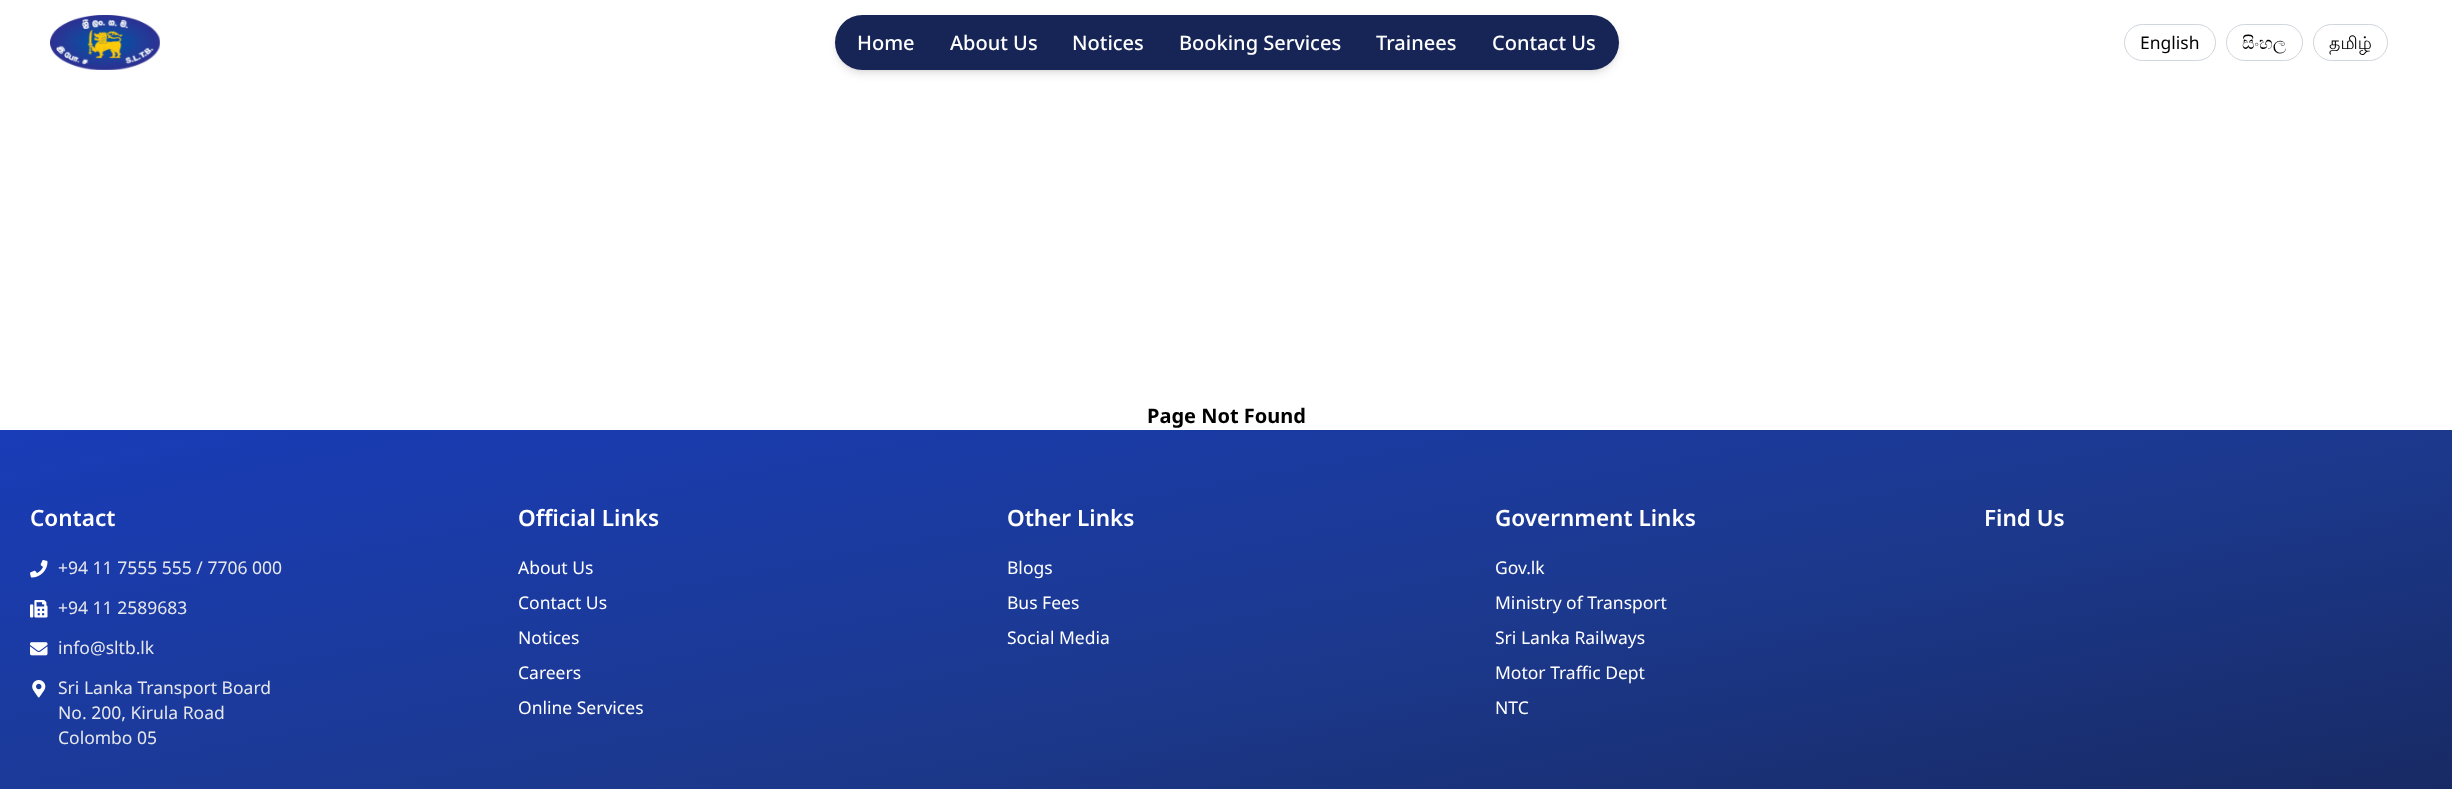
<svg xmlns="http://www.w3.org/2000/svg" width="2452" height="789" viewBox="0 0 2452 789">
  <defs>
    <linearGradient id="g1" gradientUnits="userSpaceOnUse" x1="1136" y1="208" x2="1316" y2="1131"><stop offset="0" stop-color="#193cb8"/><stop offset="0.5" stop-color="#1c398e"/><stop offset="1" stop-color="#162556"/></linearGradient>
  </defs>
  <rect width="100%" height="100%" fill="#fff"/>
  <image x="50" y="15" width="110" height="55" href="img/1.png"/>
  <rect x="838" y="20" width="778" height="50" rx="25" fill="#0000001a" filter="blur(2.5px)"/>
  <rect x="836" y="21" width="782" height="53" rx="26.5" fill="#0000001a" filter="blur(4px)"/>
  <rect x="835" y="15" width="784" height="55" rx="27.5" fill="#162556"/>
  <rect x="2124.5" y="24.5" width="91" height="36" rx="18" fill="none" stroke="#d1d5dc"/>
  <rect x="2226.5" y="24.5" width="76" height="36" rx="18" fill="none" stroke="#d1d5dc"/>
  <rect x="2313.5" y="24.5" width="74" height="36" rx="18" fill="none" stroke="#d1d5dc"/>
  <path d="M0 430h2452v359H0z" fill="url(#g1)"/>
  <image x="30" y="560" width="18" height="18" href="img/2.png"/>
  <image x="30" y="600" width="18" height="18" href="img/3.png"/>
  <image x="30" y="642" width="18" height="14" href="img/4.png"/>
  <image x="32" y="680" width="14" height="18" href="img/5.png"/>
  <g font-family="Noto Sans" font-size="20" font-weight="500" fill="#fff">
    <text x="857" y="50">Home</text>
    <text x="950" y="50">About Us</text>
    <text x="1072" y="50">Notices</text>
    <text x="1179" y="50">Booking Services</text>
    <text x="1376" y="50">Trainees</text>
    <text x="1492" y="50">Contact Us</text>
  </g>
  <text x="2140" y="49" font-family="Noto Sans" font-size="17.5" fill="#000">English</text>
  <text x="2242" y="49" font-family="FreeSerif" font-size="17.5" fill="#000">සිංහල</text>
  <text x="2329" y="49" font-family="Lohit Tamil" font-size="17.5" fill="#000">தமிழ்</text>
  <text x="1147" y="423" font-family="Noto Sans" font-size="20" font-weight="bold" fill="#000">Page Not Found</text>
  <text x="30" y="526" font-family="Noto Sans" font-size="22.5" font-weight="600" fill="#fff">Contact</text>
  <g font-family="Noto Sans" font-size="17.5" fill="#e5e7eb">
    <text x="58" y="574">+94 11 7555 555 / 7706 000</text>
    <text x="58" y="614">+94 11 2589683</text>
    <text x="58" y="654">info@sltb.lk</text>
    <text x="58" y="694">Sri Lanka Transport Board</text>
    <text x="58" y="719">No. 200, Kirula Road</text>
    <text x="58" y="744">Colombo 05</text>
  </g>
  <text x="518" y="526" font-family="Noto Sans" font-size="22.5" font-weight="600" fill="#fff">Official Links</text>
  <g font-family="Noto Sans" font-size="17.5" fill="#fff">
    <text x="518" y="574">About Us</text>
    <text x="518" y="609">Contact Us</text>
    <text x="518" y="644">Notices</text>
    <text x="518" y="679">Careers</text>
    <text x="518" y="714">Online Services</text>
  </g>
  <text x="1007" y="526" font-family="Noto Sans" font-size="22.5" font-weight="600" fill="#fff">Other Links</text>
  <g font-family="Noto Sans" font-size="17.5" fill="#fff">
    <text x="1007" y="574">Blogs</text>
    <text x="1007" y="609">Bus Fees</text>
    <text x="1007" y="644">Social Media</text>
  </g>
  <text x="1495" y="526" font-family="Noto Sans" font-size="22.5" font-weight="600" fill="#fff">Government Links</text>
  <g font-family="Noto Sans" font-size="17.5" fill="#fff">
    <text x="1495" y="574">Gov.lk</text>
    <text x="1495" y="609">Ministry of Transport</text>
    <text x="1495" y="644">Sri Lanka Railways</text>
    <text x="1495" y="679">Motor Traffic Dept</text>
    <text x="1495" y="714">NTC</text>
  </g>
  <text x="1984" y="526" font-family="Noto Sans" font-size="22.5" font-weight="600" fill="#fff">Find Us</text>
</svg>
